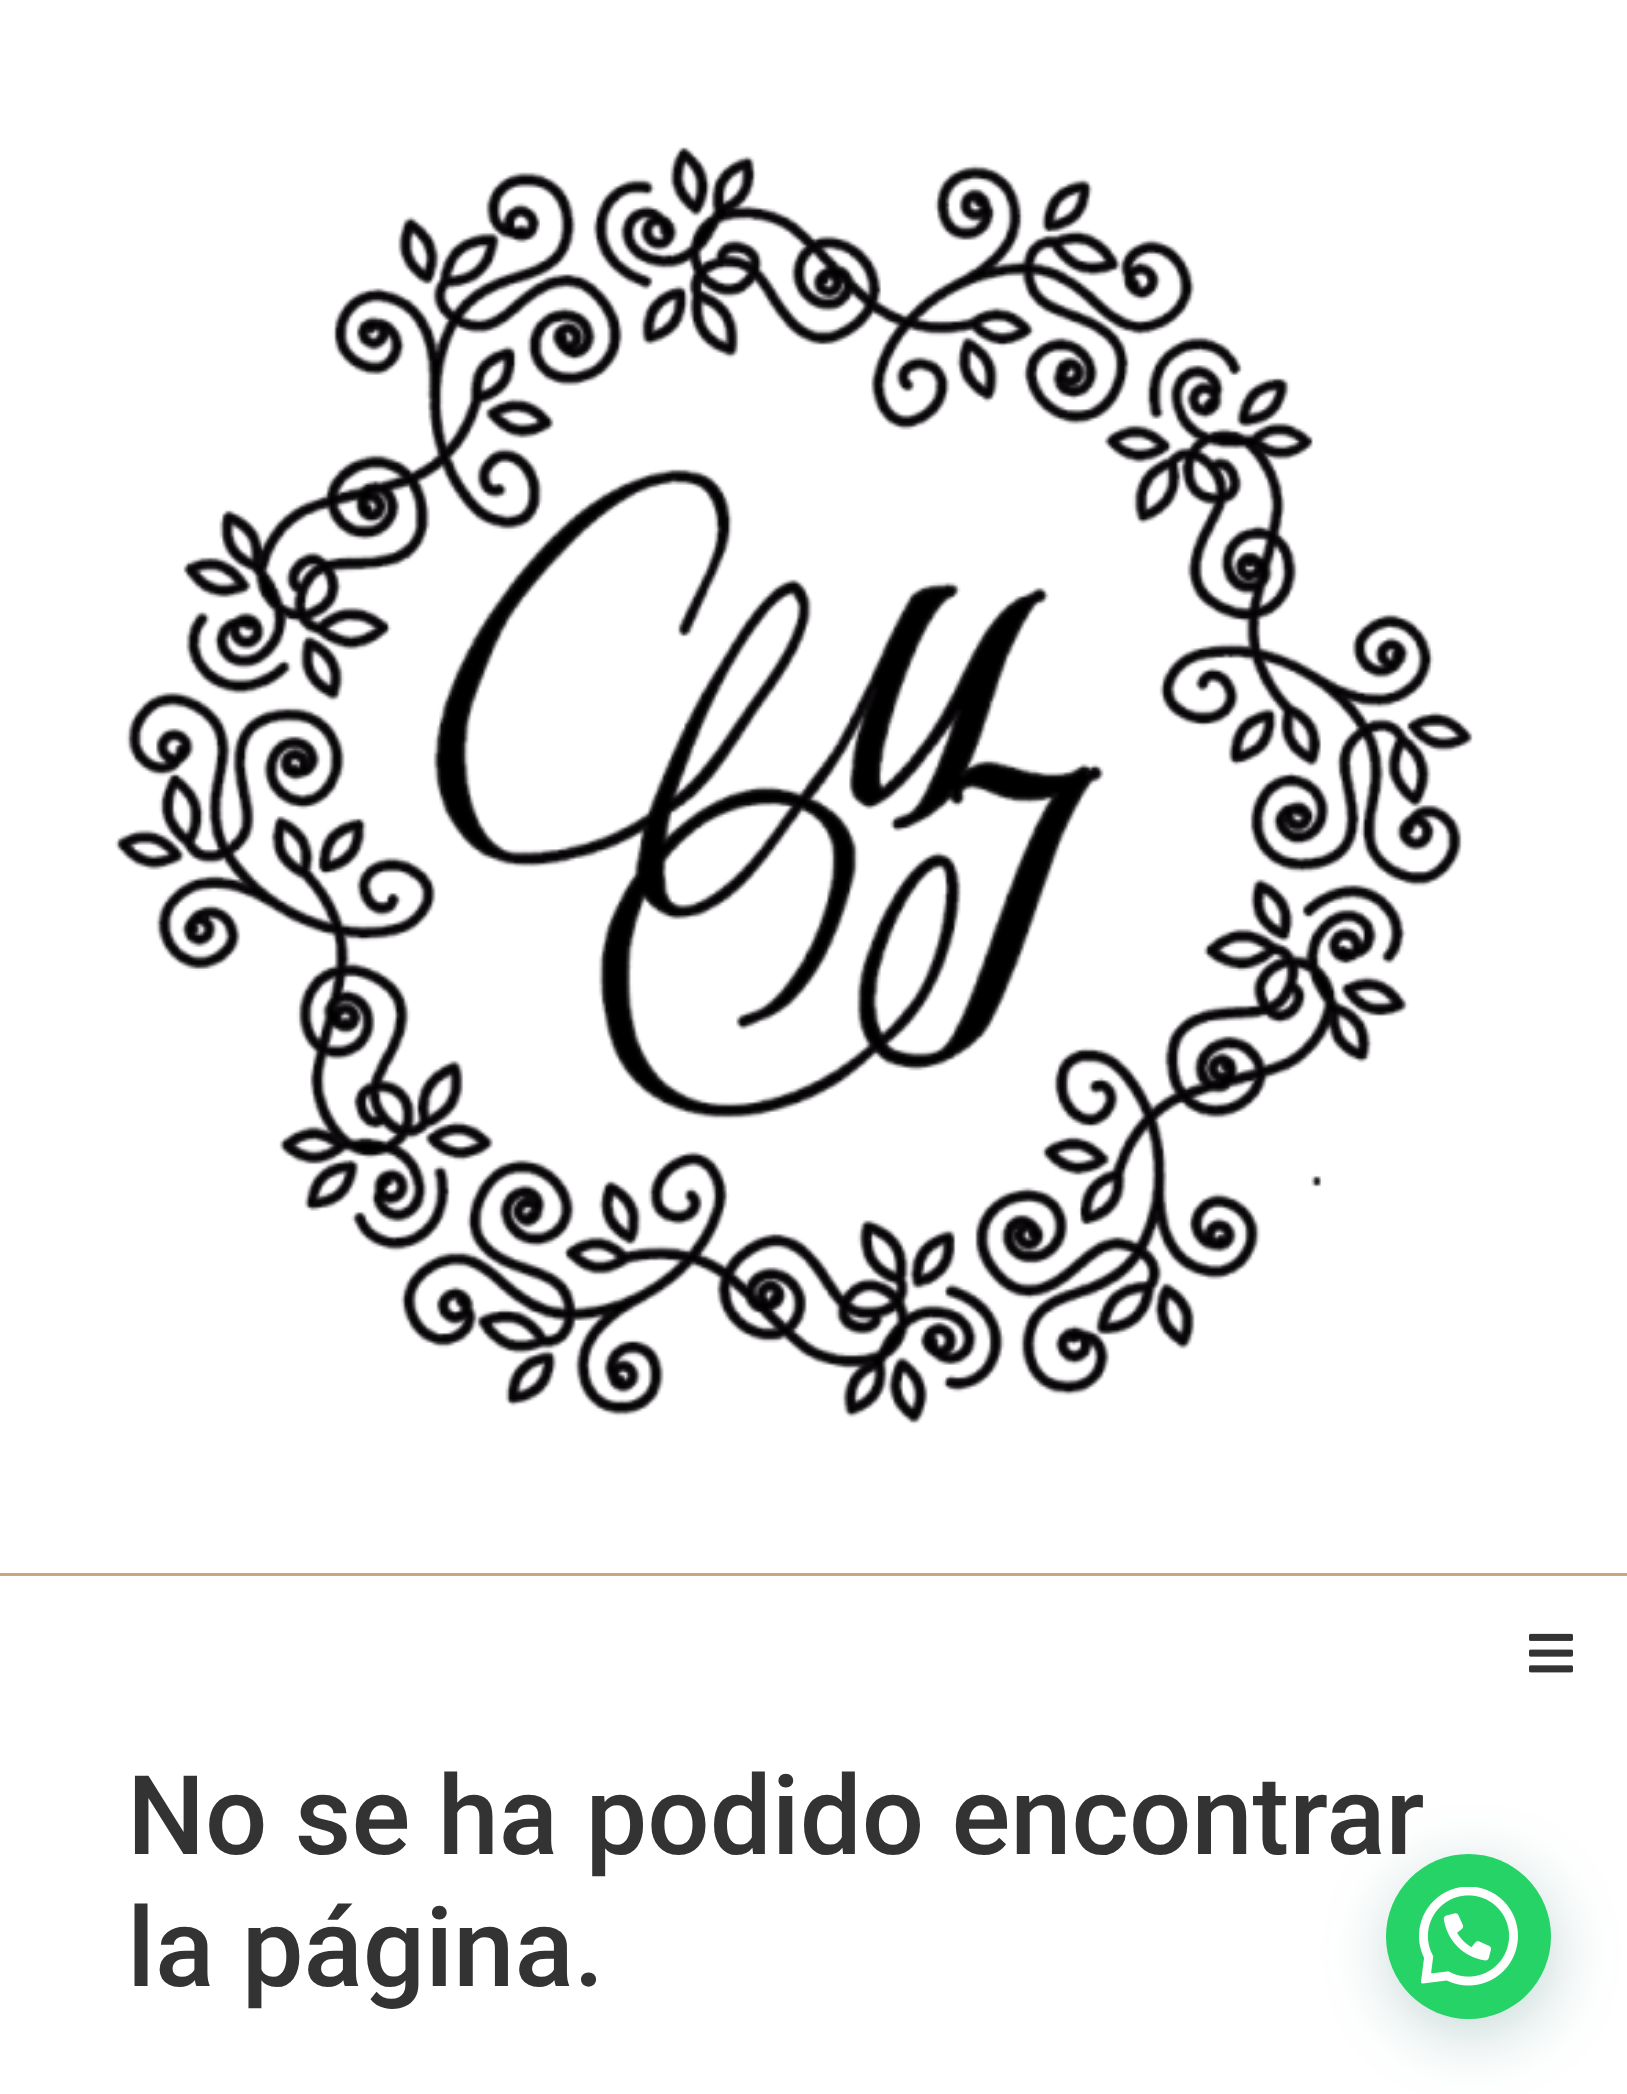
<svg xmlns="http://www.w3.org/2000/svg" width="1627" height="2094" viewBox="0 0 1627 2094">
  <rect width="100%" height="100%" fill="#fff"/>
  <path d="M0 1573h1627v3H0z" fill="#c5a880"/>
  <image x="115" y="146" width="1358" height="1279" href="img/1.png"/>
  <image x="1529" y="1633" width="44" height="40" href="img/2.png"/>
  <rect x="1389" y="1870" width="165" height="165" rx="82.5" fill="#075e543d" filter="blur(33px)"/>
  <g font-family="Roboto" font-size="110" font-weight="500" fill="#333">
    <text x="127" y="1854">No se ha podido encontrar</text>
    <text x="127" y="1986">la página.</text>
  </g>
  <circle cx="1468.5" cy="1936.5" r="82.5" fill="#25d366"/>
  <image x="1419" y="1887" width="99" height="99" href="img/3.png"/>
</svg>
